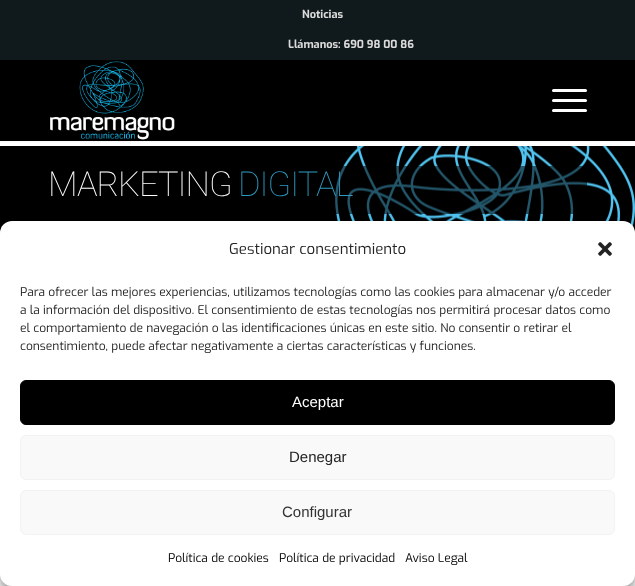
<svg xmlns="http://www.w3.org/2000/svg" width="635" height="586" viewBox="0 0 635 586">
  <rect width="100%" height="100%" fill="#000"/>
  <path d="M0 0h635v60H0z" fill="#10191c"/>
  <path d="M0 141h635v1H0z" fill="#f8f8f8"/>
  <image x="50" y="61" width="125" height="79" href="img/1.png"/>
  <rect x="552" y="99" width="35" height="3" rx="1.5" fill="#fff"/>
  <rect x="552" y="89" width="35" height="3" rx="1.5" fill="#fff"/>
  <rect x="552" y="109" width="35" height="3" rx="1.5" fill="#fff"/>
  <path d="M0 142h635v4H0z" fill="#fff"/>
  <image x="335" y="146" width="300" height="81" href="img/2.png"/>
  <path d="M335 166h252v48H335z" fill="#0000008f"/>
  <path d="M0 574h635v12H0z" fill="#fff"/>
  <rect y="227" width="635" height="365" rx="12" fill="#0000003b" filter="blur(3px)"/>
  <rect y="231" width="635" height="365" rx="12" fill="#00000030" filter="blur(10px)"/>
  <rect y="221" width="635" height="365" rx="12" fill="#fff"/>
  <image x="598" y="242" width="14" height="14" href="img/3.png"/>
  <rect x="20.5" y="380.5" width="594" height="44" rx="5.5" fill="#000" stroke="#000"/>
  <rect x="20.5" y="435.5" width="594" height="44" rx="5.5" fill="#f9f9f9" stroke="#f2f2f2"/>
  <rect x="20.5" y="490.5" width="594" height="44" rx="5.5" fill="#f9f9f9" stroke="#f2f2f2"/>
  <g font-family="Exo" font-size="11" font-weight="bold" fill="#dbdbdb">
    <text x="302" y="18">Noticias</text>
    <text x="288" y="48">Llámanos: 690 98 00 86</text>
  </g>
  <text x="48" y="196" font-family="Roboto" font-size="34.5" font-weight="100" letter-spacing="-1" fill="#fff">MARKETING</text>
  <text x="238" y="196" font-family="Roboto" font-size="34.5" font-weight="100" letter-spacing="-1" fill="#2e9ac2">DIGITAL</text>
  <text x="229" y="254" font-family="Exo" font-size="15" fill="#222">Gestionar consentimiento</text>
  <g font-family="Exo" font-size="12" fill="#222">
    <text x="20" y="296">Para ofrecer las mejores experiencias, utilizamos tecnologías como las cookies para almacenar y/o acceder</text>
    <text x="20" y="314">a la información del dispositivo. El consentimiento de estas tecnologías nos permitirá procesar datos como</text>
    <text x="20" y="332">el comportamiento de navegación o las identificaciones únicas en este sitio. No consentir o retirar el</text>
    <text x="20" y="350">consentimiento, puede afectar negativamente a ciertas características y funciones.</text>
  </g>
  <text x="292" y="407" font-family="Liberation Sans" font-size="15" fill="#fff">Aceptar</text>
  <text x="289" y="462" font-family="Liberation Sans" font-size="15" fill="#222">Denegar</text>
  <text x="282" y="517" font-family="Liberation Sans" font-size="15" fill="#333">Configurar</text>
  <g font-family="Exo" font-size="12" fill="#000">
    <text x="168" y="562">Política de cookies</text>
    <text x="279" y="562">Política de privacidad</text>
    <text x="405" y="562">Aviso Legal</text>
  </g>
</svg>
